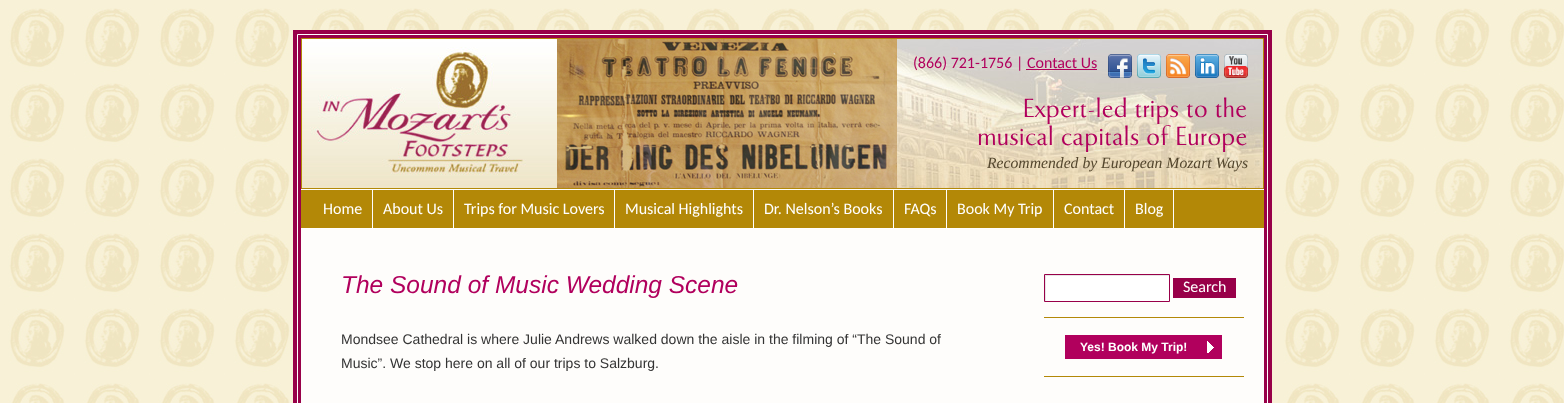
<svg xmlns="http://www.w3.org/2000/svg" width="1564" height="403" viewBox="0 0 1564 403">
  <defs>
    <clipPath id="clip1"><path d="M1045 275h124v26H1045z"/></clipPath>
  </defs>
  <rect width="100%" height="100%" fill="#fff"/>
  <image x="0" y="0" width="1564" height="403" href="img/1.png"/>
  <path d="M293 30h979v373H293z" fill="#980049"/>
  <path d="M297.5 34.5h970v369H297.5z" fill="none" stroke="#fff"/>
  <image x="302" y="39" width="961" height="149" href="img/2.png"/>
  <path d="M301.5 38.5h962v150H301.5z" fill="none" stroke="#b38807"/>
  <image x="557" y="39" width="340" height="149" href="img/3.png"/>
  <path d="M1026 69h71v1H1026z" fill="#b1005d"/>
  <image x="1108" y="54" width="24" height="24" href="img/4.png"/>
  <image x="1137" y="54" width="24" height="24" href="img/5.png"/>
  <image x="1166" y="54" width="24" height="24" href="img/6.png"/>
  <image x="1195" y="54" width="24" height="24" href="img/7.png"/>
  <image x="1224" y="54" width="24" height="24" href="img/8.png"/>
  <path d="M301 190h963v38H301z" fill="#b38807"/>
  <path d="M301 189h963v1H301z" fill="#fff"/>
  <path d="M301 228h963v1H301z" fill="#fff"/>
  <path d="M372 190h1v38H372z" fill="#fff"/>
  <path d="M453 190h1v38H453z" fill="#fff"/>
  <path d="M614 190h1v38H614z" fill="#fff"/>
  <path d="M753 190h1v38H753z" fill="#fff"/>
  <path d="M893 190h1v38H893z" fill="#fff"/>
  <path d="M946 190h1v38H946z" fill="#fff"/>
  <path d="M1053 190h1v38H1053z" fill="#fff"/>
  <path d="M1124 190h1v38H1124z" fill="#fff"/>
  <path d="M1173 190h1v38H1173z" fill="#fff"/>
  <path d="M301 229h963v174H301z" fill="#fefdfb"/>
  <path d="M1044 317h200v1H1044z" fill="#b38807"/>
  <path d="M1046 276h123v25H1046z" fill="#fff"/>
  <g clip-path="url(#clip1)">
    <path d="M946 176H1268V400H946ZM1046 276H1170V302H1046Z" fill="#e6e6e6" fill-rule="evenodd"/>
  </g>
  <path d="M1044.5 274.5h125v27H1044.5z" fill="none" stroke="#980049"/>
  <path d="M1173 278h63v20H1173z" fill="#980049"/>
  <path d="M1044 376h200v1H1044z" fill="#b38807"/>
  <path d="M1065 335h157v24H1065z" fill="#b1005d"/>
  <image x="1207" y="341" width="7" height="12" href="img/9.png"/>
  <text x="913" y="68" font-family="Carlito" font-size="16" fill="#b1005d">(866) 721-1756 | Contact Us</text>
  <g font-family="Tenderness" font-size="28" fill="#b1005d">
    <text x="1023" y="117">Expert-led trips to the</text>
    <text x="977" y="145">musical capitals of Europe</text>
  </g>
  <text x="987" y="168" font-family="Liberation Serif" font-size="15.7" font-style="italic" fill="#54472e">Recommended by European Mozart Ways</text>
  <g font-family="Carlito" font-size="16" fill="#fff">
    <text x="323" y="214">Home</text>
    <text x="383" y="214">About Us</text>
    <text x="464" y="214">Trips for Music Lovers</text>
    <text x="625" y="214">Musical Highlights</text>
    <text x="764" y="214">Dr. Nelson’s Books</text>
    <text x="904" y="214">FAQs</text>
    <text x="957" y="214">Book My Trip</text>
    <text x="1064" y="214">Contact</text>
    <text x="1135" y="214">Blog</text>
  </g>
  <text x="341" y="293" font-family="Liberation Sans" font-size="24.5" font-style="italic" fill="#b1005d">The Sound of Music Wedding Scene</text>
  <g font-family="Liberation Sans" font-size="14" fill="#333">
    <text x="341" y="344">Mondsee Cathedral is where Julie Andrews walked down the aisle in the filming of “The Sound of</text>
    <text x="341" y="368">Music”. We stop here on all of our trips to Salzburg.</text>
  </g>
  <text x="1183" y="292" font-family="Carlito" font-size="16" fill="#fff">Search</text>
  <text x="1080" y="351" font-family="Liberation Sans" font-size="12" font-weight="bold" fill="#fff">Yes! Book My Trip!</text>
</svg>
